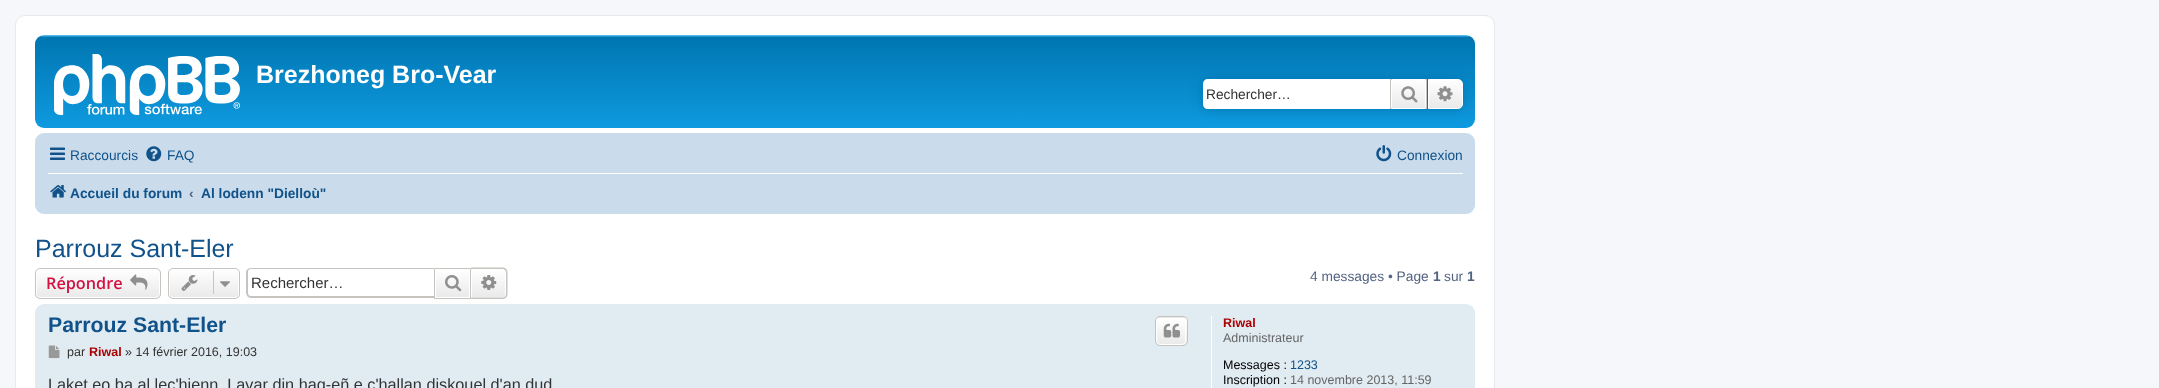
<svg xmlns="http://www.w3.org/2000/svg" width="2159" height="388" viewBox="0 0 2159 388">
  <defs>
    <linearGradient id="g1" gradientUnits="userSpaceOnUse" x1="755" y1="35" x2="755" y2="150"><stop offset="0" stop-color="#6aceff"/><stop offset="0.02" stop-color="#0076b1"/><stop offset="1" stop-color="#12a3eb"/></linearGradient>
    <linearGradient id="g2" gradientUnits="userSpaceOnUse" x1="1409" y1="79" x2="1409" y2="109"><stop offset="0" stop-color="#fff"/><stop offset="1" stop-color="#e9e9e9"/></linearGradient>
    <linearGradient id="g3" gradientUnits="userSpaceOnUse" x1="1445" y1="79" x2="1445" y2="109"><stop offset="0" stop-color="#fff"/><stop offset="1" stop-color="#e9e9e9"/></linearGradient>
    <clipPath id="clip1"><rect x="35" y="268" width="126" height="31" rx="5"/></clipPath>
    <linearGradient id="g4" gradientUnits="userSpaceOnUse" x1="98" y1="269" x2="98" y2="298"><stop offset="0" stop-color="#fff"/><stop offset="1" stop-color="#e9e9e9"/></linearGradient>
    <clipPath id="clip2"><rect x="168" y="268" width="72" height="31" rx="5"/></clipPath>
    <linearGradient id="g5" gradientUnits="userSpaceOnUse" x1="204" y1="269" x2="204" y2="298"><stop offset="0" stop-color="#fff"/><stop offset="1" stop-color="#e9e9e9"/></linearGradient>
    <linearGradient id="g6" gradientUnits="userSpaceOnUse" x1="453" y1="269" x2="453" y2="298"><stop offset="0" stop-color="#fff"/><stop offset="1" stop-color="#e9e9e9"/></linearGradient>
    <linearGradient id="g7" gradientUnits="userSpaceOnUse" x1="489" y1="269" x2="489" y2="298"><stop offset="0" stop-color="#fff"/><stop offset="1" stop-color="#e9e9e9"/></linearGradient>
    <clipPath id="clip3"><rect x="1155" y="316" width="33" height="30" rx="5"/></clipPath>
    <linearGradient id="g8" gradientUnits="userSpaceOnUse" x1="1171" y1="290" x2="1171" y2="318"><stop offset="0" stop-color="#fff"/><stop offset="1" stop-color="#e9e9e9"/></linearGradient>
    <linearGradient id="g9" gradientUnits="userSpaceOnUse" x1="1171" y1="318" x2="1171" y2="345"><stop offset="0" stop-color="#fff"/><stop offset="1" stop-color="#e9e9e9"/></linearGradient>
  </defs>
  <rect width="100%" height="100%" fill="#f5f7fa"/>
  <rect x="15.5" y="15.5" width="1479" height="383" rx="9.5" fill="#fff" stroke="#e6e9ed"/>
  <rect x="35" y="35" width="1440" height="93" rx="9" fill="url(#g1)"/>
  <image x="54" y="54" width="186" height="61" href="img/1.png"/>
  <rect x="1203" y="79" width="260" height="30" rx="5" fill="#0075b0" filter="blur(6px)"/>
  <path d="M1208 79H1390V109H1208C1205 109 1203 107 1203 104V84C1203 81 1205 79 1208 79Z" fill="#fff"/>
  <path d="M1392 80h33v28H1392z" fill="url(#g2)"/>
  <path d="M1391.5 79.5h34v29H1391.5z" fill="none" stroke="#fff"/>
  <path d="M1426 79h1v30H1426z" fill="#c7c3bf"/>
  <path d="M1390 79h1v30H1390z" fill="#c7c3bf"/>
  <image x="1401" y="86" width="17" height="17" href="img/2.png"/>
  <path d="M1428.5 79.5H1458C1460.5 79.5 1462.5 81.5 1462.5 84V104C1462.5 106.5 1460.5 108.5 1458 108.5H1428.5Z" fill="url(#g3)" stroke="#fff"/>
  <image x="1437" y="86" width="16" height="16" href="img/3.png"/>
  <rect x="35" y="133" width="1440" height="81" rx="9" fill="#cadceb"/>
  <image x="50" y="147" width="15" height="13" href="img/4.png"/>
  <image x="146" y="146" width="16" height="16" href="img/5.png"/>
  <image x="1376" y="145" width="16" height="17" href="img/6.png"/>
  <path d="M48 173h1415v1H48z" fill="#fff"/>
  <image x="50" y="185" width="16" height="13" href="img/7.png"/>
  <g clip-path="url(#clip1)">
    <path d="M35 269h126v29H35z" fill="url(#g4)"/>
  </g>
  <rect x="36.5" y="269.5" width="123" height="28" rx="3.5" fill="none" stroke="#fff"/>
  <rect x="35.5" y="268.5" width="125" height="30" rx="4.5" fill="none" stroke="#c7c3bf"/>
  <image x="130" y="274" width="18" height="16" href="img/8.png"/>
  <g clip-path="url(#clip2)">
    <path d="M168 269h72v29H168z" fill="url(#g5)"/>
  </g>
  <rect x="169.5" y="269.5" width="69" height="28" rx="3.5" fill="none" stroke="#fff"/>
  <rect x="168.5" y="268.5" width="71" height="30" rx="4.5" fill="none" stroke="#c7c3bf"/>
  <image x="181" y="275" width="17" height="16" href="img/9.png"/>
  <path d="M213 271h1v23H213z" fill="#c7c3bf"/>
  <image x="220" y="281" width="10" height="6" href="img/10.png"/>
  <path d="M251 268H434V298H251C248 298 246 295 246 292V272C246 270 248 268 251 268ZM251 269H434V296H251C249 296 248 295 248 292V272C248 270 249 269 251 269Z" fill="#c7c3bf" fill-rule="evenodd"/>
  <path d="M436 272h33v25H436z" fill="url(#g6)"/>
  <path d="M434.5 268.5h36v30H434.5z" fill="none" stroke="#c7c3bf"/>
  <image x="445" y="275" width="17" height="17" href="img/11.png"/>
  <path d="M471.5 269.5H502C504 269.5 505.5 271 505.5 273V294C505.5 296 504 297.5 502 297.5H471.5Z" fill="url(#g7)" stroke="#fff"/>
  <path d="M471 267.5H502.5C505.5 267.5 507.5 269.5 507.5 272.5V294C507.5 296.5 505.5 299 502.5 299H471ZM471 269H502.5C504.5 269 506 270.5 506 272.5V294C506 296 504.5 297.5 502.5 297.5H471Z" fill="#c7c3bf" fill-rule="evenodd"/>
  <image x="481" y="275" width="16" height="15" href="img/12.png"/>
  <rect x="35" y="304" width="1440" height="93" rx="9" fill="#e1ebf2"/>
  <g clip-path="url(#clip3)">
    <path d="M1155 316h33v2H1155z" fill="url(#g8)"/>
    <path d="M1155 318h33v27H1155z" fill="url(#g9)"/>
  </g>
  <rect x="1156.5" y="318.5" width="29" height="26" rx="3.5" fill="none" stroke="#fff"/>
  <rect x="1155.5" y="316.5" width="32" height="29" rx="4.5" fill="none" stroke="#c7c3bf"/>
  <image x="1163" y="323" width="17" height="15" href="img/13.png"/>
  <image x="48" y="345" width="12" height="14" href="img/14.png"/>
  <path d="M1211 316h1v72H1211z" fill="#fff"/>
  <text x="256" y="83" font-family="Liberation Sans" font-size="25" font-weight="bold" fill="#fff">Brezhoneg Bro-Vear</text>
  <text x="1206" y="99" font-family="Liberation Sans" font-size="13.75" fill="#333">Rechercher…</text>
  <g font-family="Liberation Sans" font-size="13.75" fill="#105289">
    <text x="70" y="160">Raccourcis</text>
    <text x="167" y="160">FAQ</text>
    <text x="1397" y="160">Connexion</text>
  </g>
  <text x="70" y="198" font-family="Liberation Sans" font-size="13.75" font-weight="bold" fill="#105289">Accueil du forum</text>
  <text x="189" y="198" font-family="Liberation Sans" font-size="13.75" font-weight="bold" fill="#536482">‹</text>
  <text x="201" y="198" font-family="Liberation Sans" font-size="13.75" font-weight="bold" fill="#105289">Al lodenn "Dielloù"</text>
  <text x="35" y="257" font-family="Liberation Sans" font-size="25" fill="#105289">Parrouz Sant-Eler</text>
  <text x="46" y="289" font-family="Open Sans" font-size="16.25" font-weight="600" fill="#d31141">Répondre</text>
  <text x="251" y="288" font-family="Liberation Sans" font-size="15" fill="#333">Rechercher…</text>
  <text x="1310" y="281" font-family="Liberation Sans" font-size="13.75" fill="#536482">4 messages • Page</text>
  <text x="1433" y="281" font-family="Liberation Sans" font-size="13.75" font-weight="bold" fill="#536482">1</text>
  <text x="1444" y="281" font-family="Liberation Sans" font-size="13.75" fill="#536482">sur</text>
  <text x="1467" y="281" font-family="Liberation Sans" font-size="13.75" font-weight="bold" fill="#536482">1</text>
  <text x="48" y="332" font-family="Liberation Sans" font-size="21.25" font-weight="bold" fill="#105289">Parrouz Sant-Eler</text>
  <text x="67" y="356" font-family="Liberation Sans" font-size="12.5" fill="#333">par</text>
  <text x="89" y="356" font-family="Liberation Sans" font-size="12.5" font-weight="bold" fill="#a00">Riwal</text>
  <text x="125" y="356" font-family="Liberation Sans" font-size="12.5" fill="#333">» 14 février 2016, 19:03</text>
  <text x="48" y="390" font-family="Liberation Sans" font-size="16.25" fill="#333">Laket eo ba al lec'hienn. Lavar din hag-eñ e c'hallan diskouel d'an dud</text>
  <text x="1223" y="327" font-family="Liberation Sans" font-size="12.5" font-weight="bold" fill="#a00">Riwal</text>
  <text x="1223" y="342" font-family="Liberation Sans" font-size="12.5" fill="#666">Administrateur</text>
  <text x="1223" y="369" font-family="Liberation Sans" font-size="12.5" fill="#000">Messages :</text>
  <text x="1290" y="369" font-family="Liberation Sans" font-size="12.5" fill="#105289">1233</text>
  <text x="1223" y="384" font-family="Liberation Sans" font-size="12.5" fill="#000">Inscription :</text>
  <text x="1290" y="384" font-family="Liberation Sans" font-size="12.5" fill="#666">14 novembre 2013, 11:59</text>
</svg>
